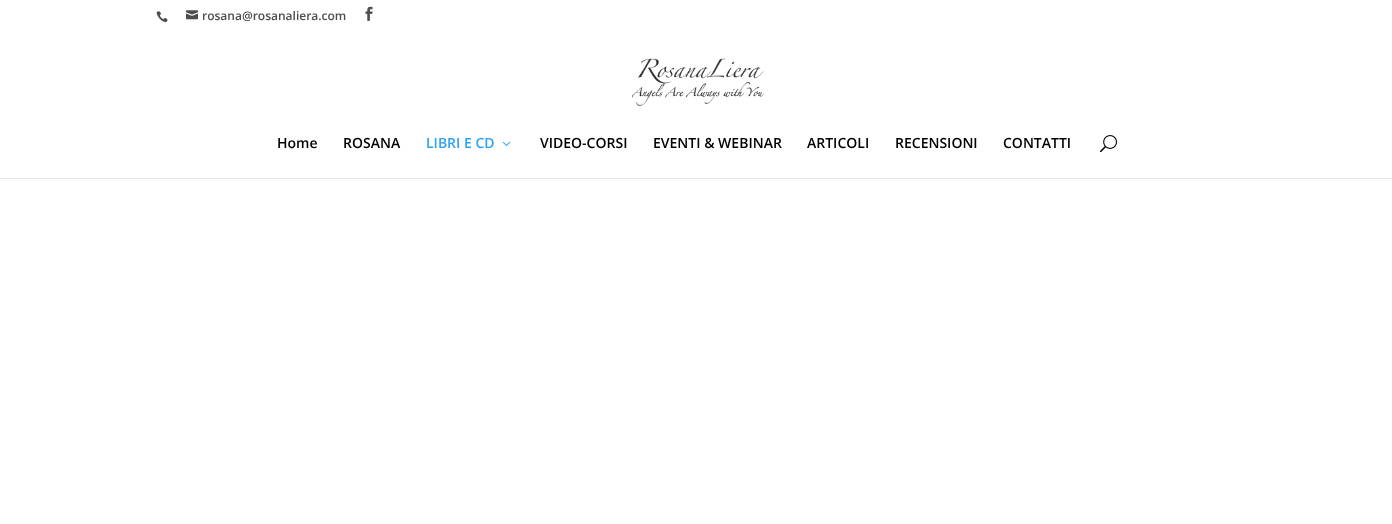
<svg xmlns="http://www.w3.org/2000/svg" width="1392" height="524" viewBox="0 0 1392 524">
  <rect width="100%" height="100%" fill="#fff"/>
  <image x="156" y="11" width="12" height="12" href="img/1.png"/>
  <image x="186" y="10" width="12" height="10" href="img/2.png"/>
  <image x="365" y="6" width="8" height="15" href="img/3.png"/>
  <path d="M0 178h1392v1H0z" fill="#e6e6e6"/>
  <image x="632" y="58" width="132" height="48" href="img/4.png"/>
  <image x="502" y="141" width="9" height="5" href="img/5.png"/>
  <image x="1100" y="135" width="17" height="18" href="img/6.png"/>
  <text x="202" y="20" font-family="Open Sans" font-size="12" font-weight="600" fill="#4d4d4d">rosana@rosanaliera.com</text>
  <g font-family="Open Sans" font-size="14" font-weight="600" fill="#000">
    <text x="277" y="148">Home</text>
    <text x="343" y="148">ROSANA</text>
  </g>
  <text x="426" y="148" font-family="Open Sans" font-size="14" font-weight="600" fill="#2ea3f2">LIBRI E CD</text>
  <g font-family="Open Sans" font-size="14" font-weight="600" fill="#000">
    <text x="540" y="148">VIDEO-CORSI</text>
    <text x="653" y="148">EVENTI &amp; WEBINAR</text>
    <text x="807" y="148">ARTICOLI</text>
    <text x="895" y="148">RECENSIONI</text>
    <text x="1003" y="148">CONTATTI</text>
  </g>
</svg>
